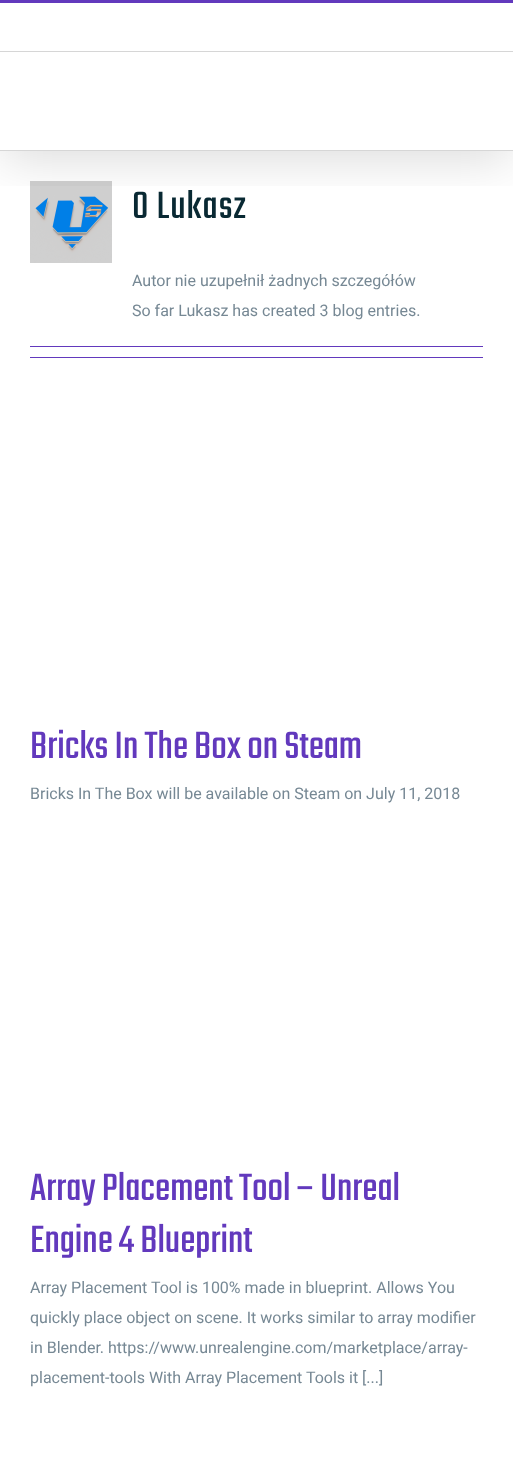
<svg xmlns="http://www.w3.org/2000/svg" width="513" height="1484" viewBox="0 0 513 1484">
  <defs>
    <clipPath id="clip1"><path d="M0 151h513v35H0z"/></clipPath>
  </defs>
  <rect width="100%" height="100%" fill="#fff"/>
  <image x="30" y="181" width="82" height="82" href="img/1.png"/>
  <g clip-path="url(#clip1)">
    <path d="M2 12h509v147H2z" fill="#00000024" filter="blur(25px)"/>
  </g>
  <path d="M0 0h513v3H0z" fill="#6239bd"/>
  <path d="M0 51h513v1H0z" fill="#d6d6d6"/>
  <path d="M0 150h513v1H0z" fill="#d6d6d6"/>
  <path d="M30 346h453v1H30z" fill="#6239bd"/>
  <path d="M30 357h453v1H30z" fill="#6239bd"/>
  <text x="132" y="218" font-family="Teko" font-size="42" letter-spacing="1" fill="#092933">O Lukasz</text>
  <g font-family="Roboto" font-size="16" fill="#768894">
    <text x="132" y="286">Autor nie uzupełnił żadnych szczegółów</text>
    <text x="132" y="316">So far Lukasz has created 3 blog entries.</text>
  </g>
  <text x="30" y="758" font-family="Teko" font-size="42" fill="#6239bd">Bricks In The Box on Steam</text>
  <text x="30" y="799" font-family="Roboto" font-size="16" fill="#768894">Bricks In The Box will be available on Steam on July 11, 2018</text>
  <g font-family="Teko" font-size="42" fill="#6239bd">
    <text x="30" y="1200">Array Placement Tool – Unreal</text>
    <text x="30" y="1252">Engine 4 Blueprint</text>
  </g>
  <g font-family="Roboto" font-size="16" fill="#768894">
    <text x="30" y="1293">Array Placement Tool is 100% made in blueprint. Allows You</text>
    <text x="30" y="1323">quickly place object on scene. It works similar to array modifier</text>
    <text x="30" y="1353">in Blender. https://www.unrealengine.com/marketplace/array-</text>
    <text x="30" y="1383">placement-tools With Array Placement Tools it [...]</text>
  </g>
</svg>
